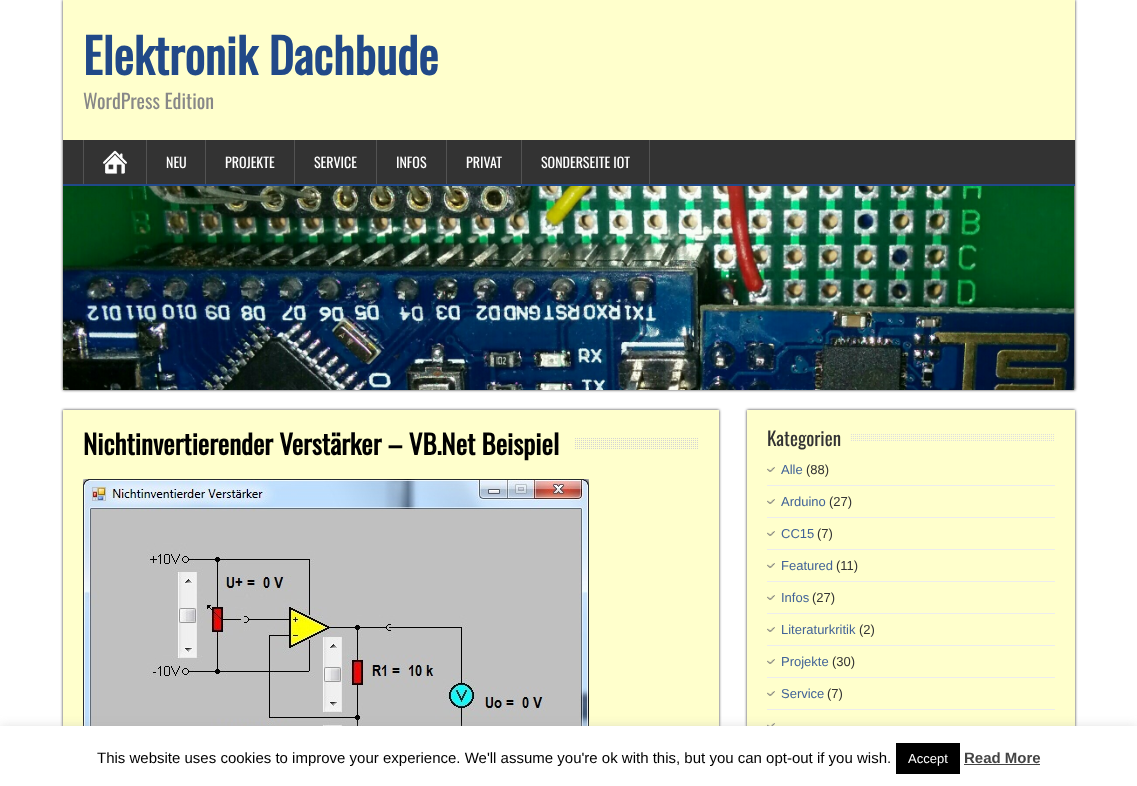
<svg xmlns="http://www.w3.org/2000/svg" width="1137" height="786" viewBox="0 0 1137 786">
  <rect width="100%" height="100%" fill="#fff"/>
  <path d="M63 0h1012v390H63z" fill="#333" filter="blur(1.5px)"/>
  <path d="M63 0h1012v140H63z" fill="#ffc"/>
  <path d="M63 140h1012v44H63z" fill="#333"/>
  <path d="M63 184h1012v2H63z" fill="#214988"/>
  <image x="103" y="150" width="24" height="24" href="img/1.png"/>
  <path d="M146 140h1v44H146z" fill="#535353"/>
  <path d="M83 140h1v44H83z" fill="#535353"/>
  <path d="M205 140h1v44H205z" fill="#535353"/>
  <path d="M294 140h1v44H294z" fill="#535353"/>
  <path d="M376 140h1v44H376z" fill="#535353"/>
  <path d="M446 140h1v44H446z" fill="#535353"/>
  <path d="M521 140h1v44H521z" fill="#535353"/>
  <path d="M649 140h1v44H649z" fill="#535353"/>
  <image x="63" y="186" width="1011" height="204" href="img/2.png"/>
  <path d="M63 410h656v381H63z" fill="#333" filter="blur(1.5px)"/>
  <path d="M63 410h656v316H63z" fill="#ffc"/>
  <image x="575" y="438" width="123" height="11" href="img/3.png"/>
  <image x="83" y="479" width="506" height="247" href="img/4.png"/>
  <path d="M747 410h328v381H747z" fill="#333" filter="blur(1.5px)"/>
  <path d="M747 410h328v316H747z" fill="#ffc"/>
  <image x="851" y="434" width="203" height="7" href="img/5.png"/>
  <image x="767" y="485" width="288" height="225" href="img/6.png"/>
  <image x="767" y="467" width="8" height="5" href="img/7.png"/>
  <image x="767" y="499" width="8" height="5" href="img/7.png"/>
  <image x="767" y="531" width="8" height="5" href="img/7.png"/>
  <image x="767" y="563" width="8" height="5" href="img/7.png"/>
  <image x="767" y="595" width="8" height="5" href="img/7.png"/>
  <image x="767" y="627" width="8" height="5" href="img/7.png"/>
  <image x="767" y="659" width="8" height="5" href="img/7.png"/>
  <image x="767" y="691" width="8" height="5" href="img/7.png"/>
  <image x="767" y="723" width="8" height="3" href="img/8.png"/>
  <path d="M0 725h1137v60H0z" fill="#acabab4d" filter="blur(5px)"/>
  <path d="M0 726h1137v60H0z" fill="#fff"/>
  <path d="M896 743h64v31H896z" fill="#000"/>
  <path d="M964 764h76v1H964z" fill="#444"/>
  <text x="83" y="75" font-family="Oswald" font-size="48" font-weight="bold" fill="#214988">Elektronik Dachbude</text>
  <text x="83" y="109" font-family="Oswald" font-size="20" fill="#888">WordPress Edition</text>
  <g font-family="Oswald" font-size="14" fill="#fff">
    <text x="166" y="168">NEU</text>
    <text x="225" y="168">PROJEKTE</text>
    <text x="314" y="168">SERVICE</text>
    <text x="396" y="168">INFOS</text>
    <text x="466" y="168">PRIVAT</text>
    <text x="541" y="168">SONDERSEITE IOT</text>
  </g>
  <text x="83" y="455" font-family="Oswald" font-size="27" font-weight="bold" fill="#000">Nichtinvertierender Verstärker – VB.Net Beispiel</text>
  <text x="767" y="446" font-family="Oswald" font-size="19" fill="#333">Kategorien</text>
  <text x="781" y="474" font-family="Liberation Sans" font-size="13" fill="#426398">Alle</text>
  <text x="806" y="474" font-family="Liberation Sans" font-size="13" fill="#333">(88)</text>
  <text x="781" y="506" font-family="Liberation Sans" font-size="13" fill="#426398">Arduino</text>
  <text x="829" y="506" font-family="Liberation Sans" font-size="13" fill="#333">(27)</text>
  <text x="781" y="538" font-family="Liberation Sans" font-size="13" fill="#426398">CC15</text>
  <text x="817" y="538" font-family="Liberation Sans" font-size="13" fill="#333">(7)</text>
  <text x="781" y="570" font-family="Liberation Sans" font-size="13" fill="#426398">Featured</text>
  <text x="836" y="570" font-family="Liberation Sans" font-size="13" fill="#333">(11)</text>
  <text x="781" y="602" font-family="Liberation Sans" font-size="13" fill="#426398">Infos</text>
  <text x="812" y="602" font-family="Liberation Sans" font-size="13" fill="#333">(27)</text>
  <text x="781" y="634" font-family="Liberation Sans" font-size="13" fill="#426398">Literaturkritik</text>
  <text x="859" y="634" font-family="Liberation Sans" font-size="13" fill="#333">(2)</text>
  <text x="781" y="666" font-family="Liberation Sans" font-size="13" fill="#426398">Projekte</text>
  <text x="832" y="666" font-family="Liberation Sans" font-size="13" fill="#333">(30)</text>
  <text x="781" y="698" font-family="Liberation Sans" font-size="13" fill="#426398">Service</text>
  <text x="827" y="698" font-family="Liberation Sans" font-size="13" fill="#333">(7)</text>
  <text x="97" y="763" font-family="Liberation Sans" font-size="15" fill="#000">This website uses cookies to improve your experience. We'll assume you're ok with this, but you can opt-out if you wish.</text>
  <text x="908" y="763" font-family="Liberation Sans" font-size="13" fill="#fff">Accept</text>
  <text x="964" y="763" font-family="Liberation Sans" font-size="15" font-weight="bold" fill="#444">Read More</text>
</svg>
